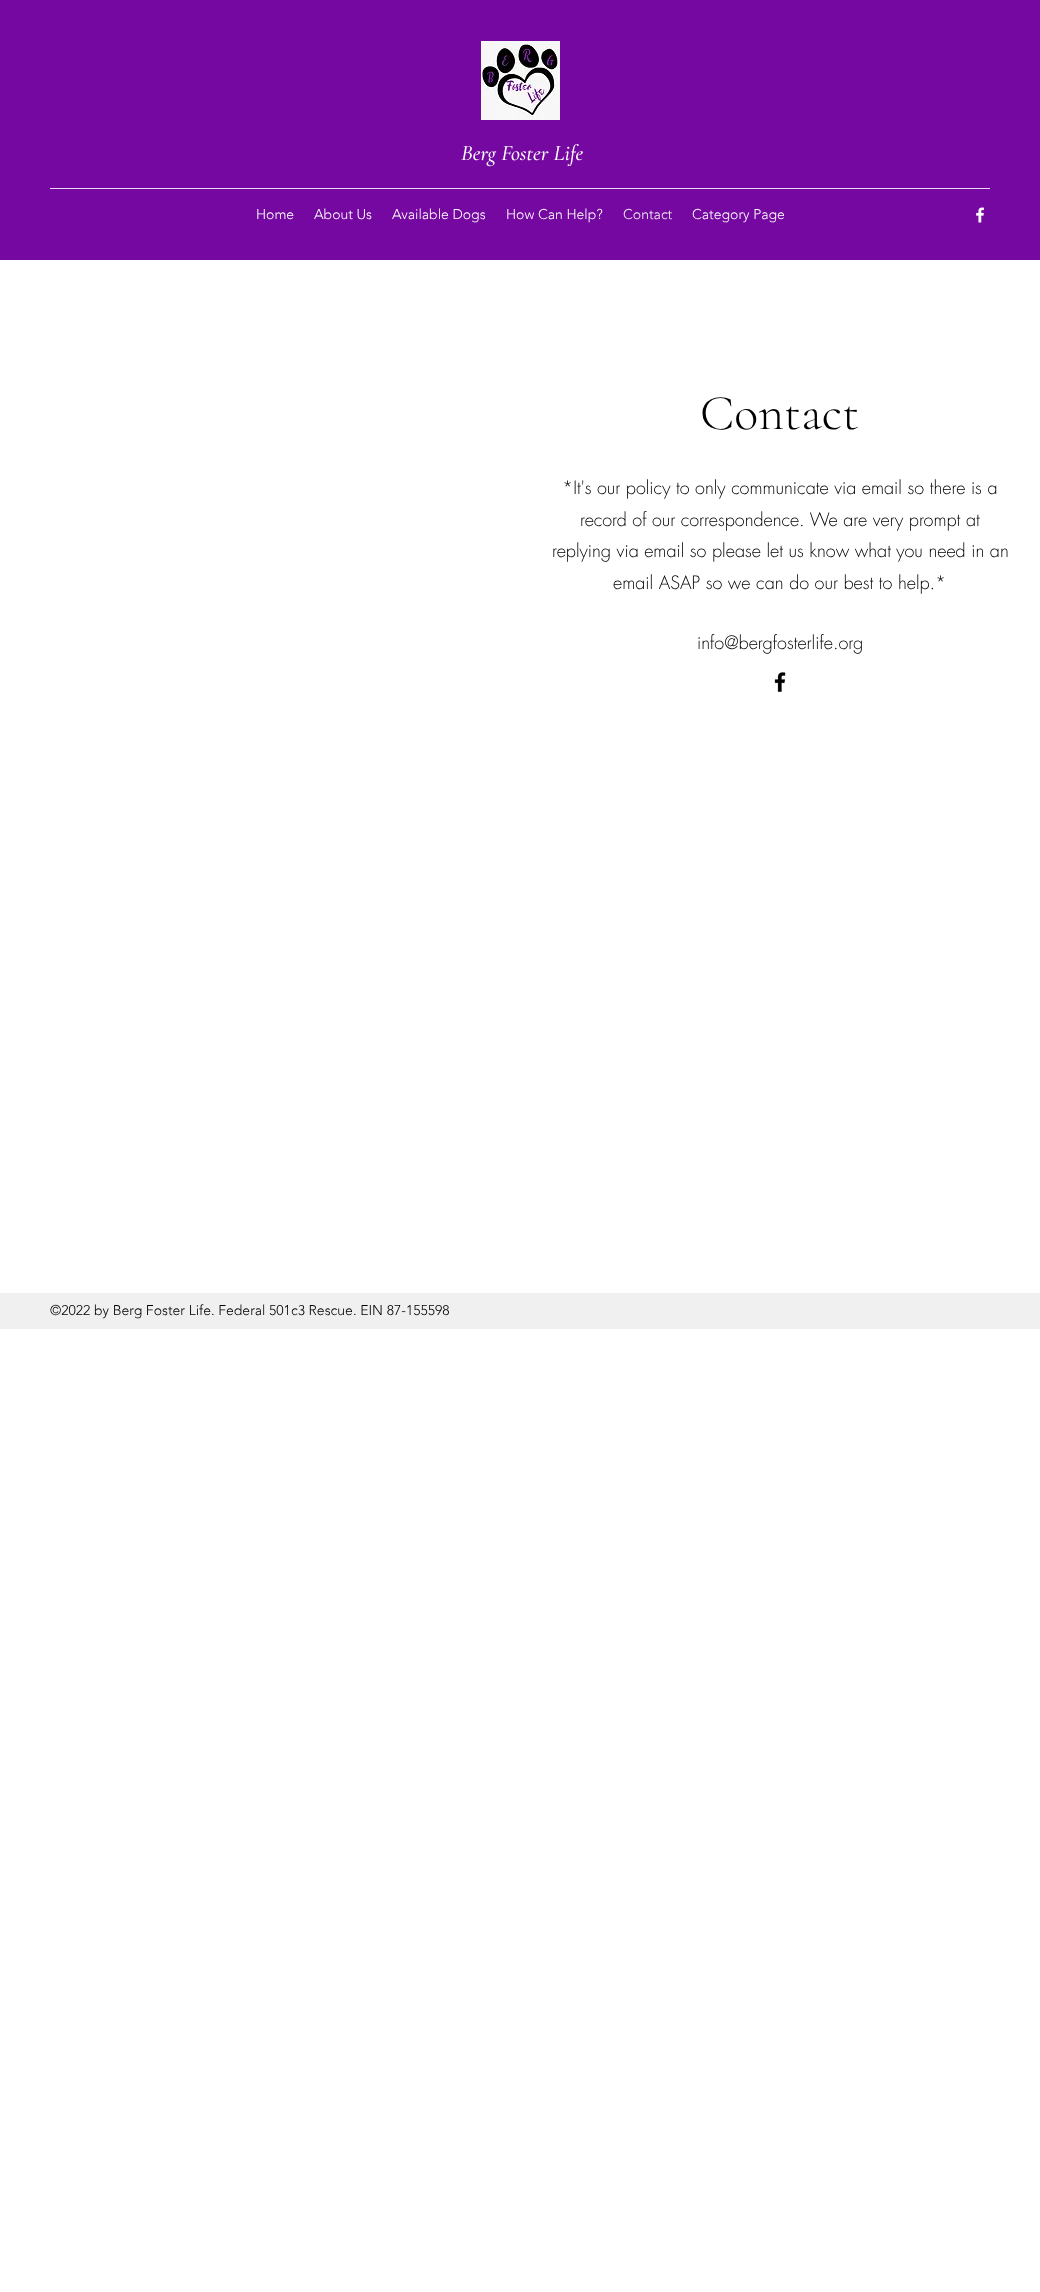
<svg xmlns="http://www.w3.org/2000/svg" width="1040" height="2292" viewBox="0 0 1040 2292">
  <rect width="100%" height="100%" fill="#fff"/>
  <path d="M0 0h1040v260H0z" fill="#7508a1"/>
  <image x="481" y="41" width="79" height="79" href="img/1.png"/>
  <path d="M50 188h940v1H50z" fill="#eadaf1"/>
  <image x="976" y="207" width="9" height="16" href="img/2.png"/>
  <image x="774" y="672" width="12" height="20" href="img/3.png"/>
  <path d="M0 1293h1040v36H0z" fill="#f0f0f0"/>
  <text x="461" y="160" font-family="Cormorant Garamond" font-size="22" font-weight="500" font-style="italic" fill="#fff">Berg Foster Life</text>
  <g font-family="'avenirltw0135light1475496'" font-size="14" font-weight="300" fill="#fff">
    <text x="256" y="219">Home</text>
    <text x="314" y="219">About Us</text>
    <text x="392" y="219">Available Dogs</text>
    <text x="506" y="219">How Can Help?</text>
  </g>
  <text x="623" y="219" font-family="'avenirltw0135light1475496'" font-size="14" font-weight="300" fill="#f0f0f0">Contact</text>
  <text x="692" y="219" font-family="'avenirltw0135light1475496'" font-size="14" font-weight="300" fill="#fff">Category Page</text>
  <text x="700" y="429" font-family="Cormorant Garamond" font-size="50" font-weight="300" fill="#000">Contact</text>
  <g font-family="futura" font-size="18" font-weight="300" fill="#000">
    <text x="562" y="494">*It's our policy to only communicate via email so there is a</text>
    <text x="580" y="526">record of our correspondence. We are very prompt at</text>
    <text x="552" y="557">replying via email so please let us know what you need in an</text>
    <text x="613" y="589">email ASAP so we can do our best to help.*</text>
    <text x="697" y="649">info@bergfosterlife.org</text>
  </g>
  <text x="50" y="1315" font-family="'avenirltw0135light1475496'" font-size="14" font-weight="300" fill="#000">©2022 by Berg Foster Life. Federal 501c3 Rescue. EIN 87-155598</text>
</svg>
